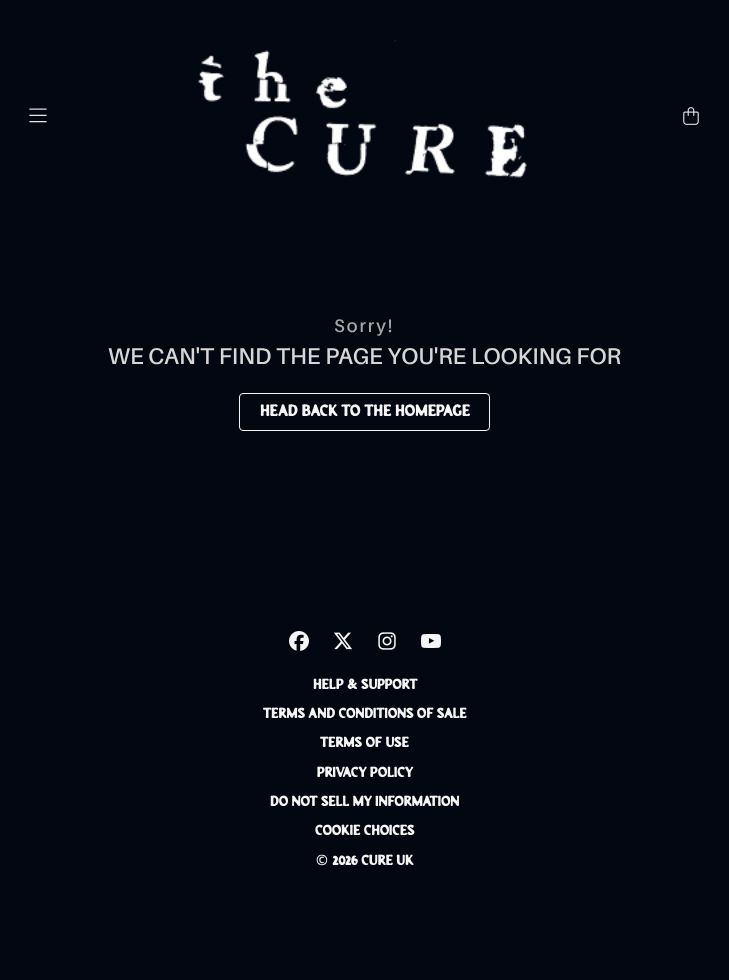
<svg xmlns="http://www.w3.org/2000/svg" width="729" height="980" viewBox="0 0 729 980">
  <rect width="100%" height="100%" fill="#030711"/>
  <image x="29" y="108" width="18" height="15" href="img/1.png"/>
  <image x="198" y="40" width="329" height="138" href="img/2.png"/>
  <image x="683" y="107" width="16" height="18" href="img/3.png"/>
  <rect x="239.5" y="393.5" width="250" height="37" rx="3.5" fill="none" stroke="#f5f5f5"/>
  <image x="289" y="631" width="20" height="20" href="img/4.png"/>
  <image x="334" y="632" width="18" height="18" href="img/5.png"/>
  <image x="378" y="632" width="18" height="18" href="img/6.png"/>
  <image x="421" y="634" width="20" height="14" href="img/7.png"/>
  <text x="334" y="332" font-family="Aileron" font-size="18" font-weight="600" letter-spacing="2" fill="#a6a6a6">Sorry!</text>
  <text x="108" y="364" font-family="Aileron" font-size="22.75" font-weight="600" fill="#d6d6d6">WE CAN'T FIND THE PAGE YOU'RE LOOKING FOR</text>
  <text x="260" y="416" font-family="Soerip" font-size="16" font-weight="bold" fill="#f5f5f5">HEAD BACK TO THE HOMEPAGE</text>
  <g font-family="Soerip" font-size="14.25" font-weight="bold" fill="#f5f5f5">
    <text x="313" y="689">HELP &amp; SUPPORT</text>
    <text x="263" y="718">TERMS AND CONDITIONS OF SALE</text>
    <text x="320" y="747">TERMS OF USE</text>
    <text x="317" y="777">PRIVACY POLICY</text>
    <text x="270" y="806">DO NOT SELL MY INFORMATION</text>
    <text x="315" y="835">COOKIE CHOICES</text>
  </g>
  <text x="316" y="865" font-family="Noto Sans" font-size="14.25" font-weight="600" fill="#f5f5f5">©</text>
  <text x="332" y="865" font-family="Soerip" font-size="14.25" font-weight="bold" fill="#f5f5f5">2026 CURE UK</text>
</svg>
